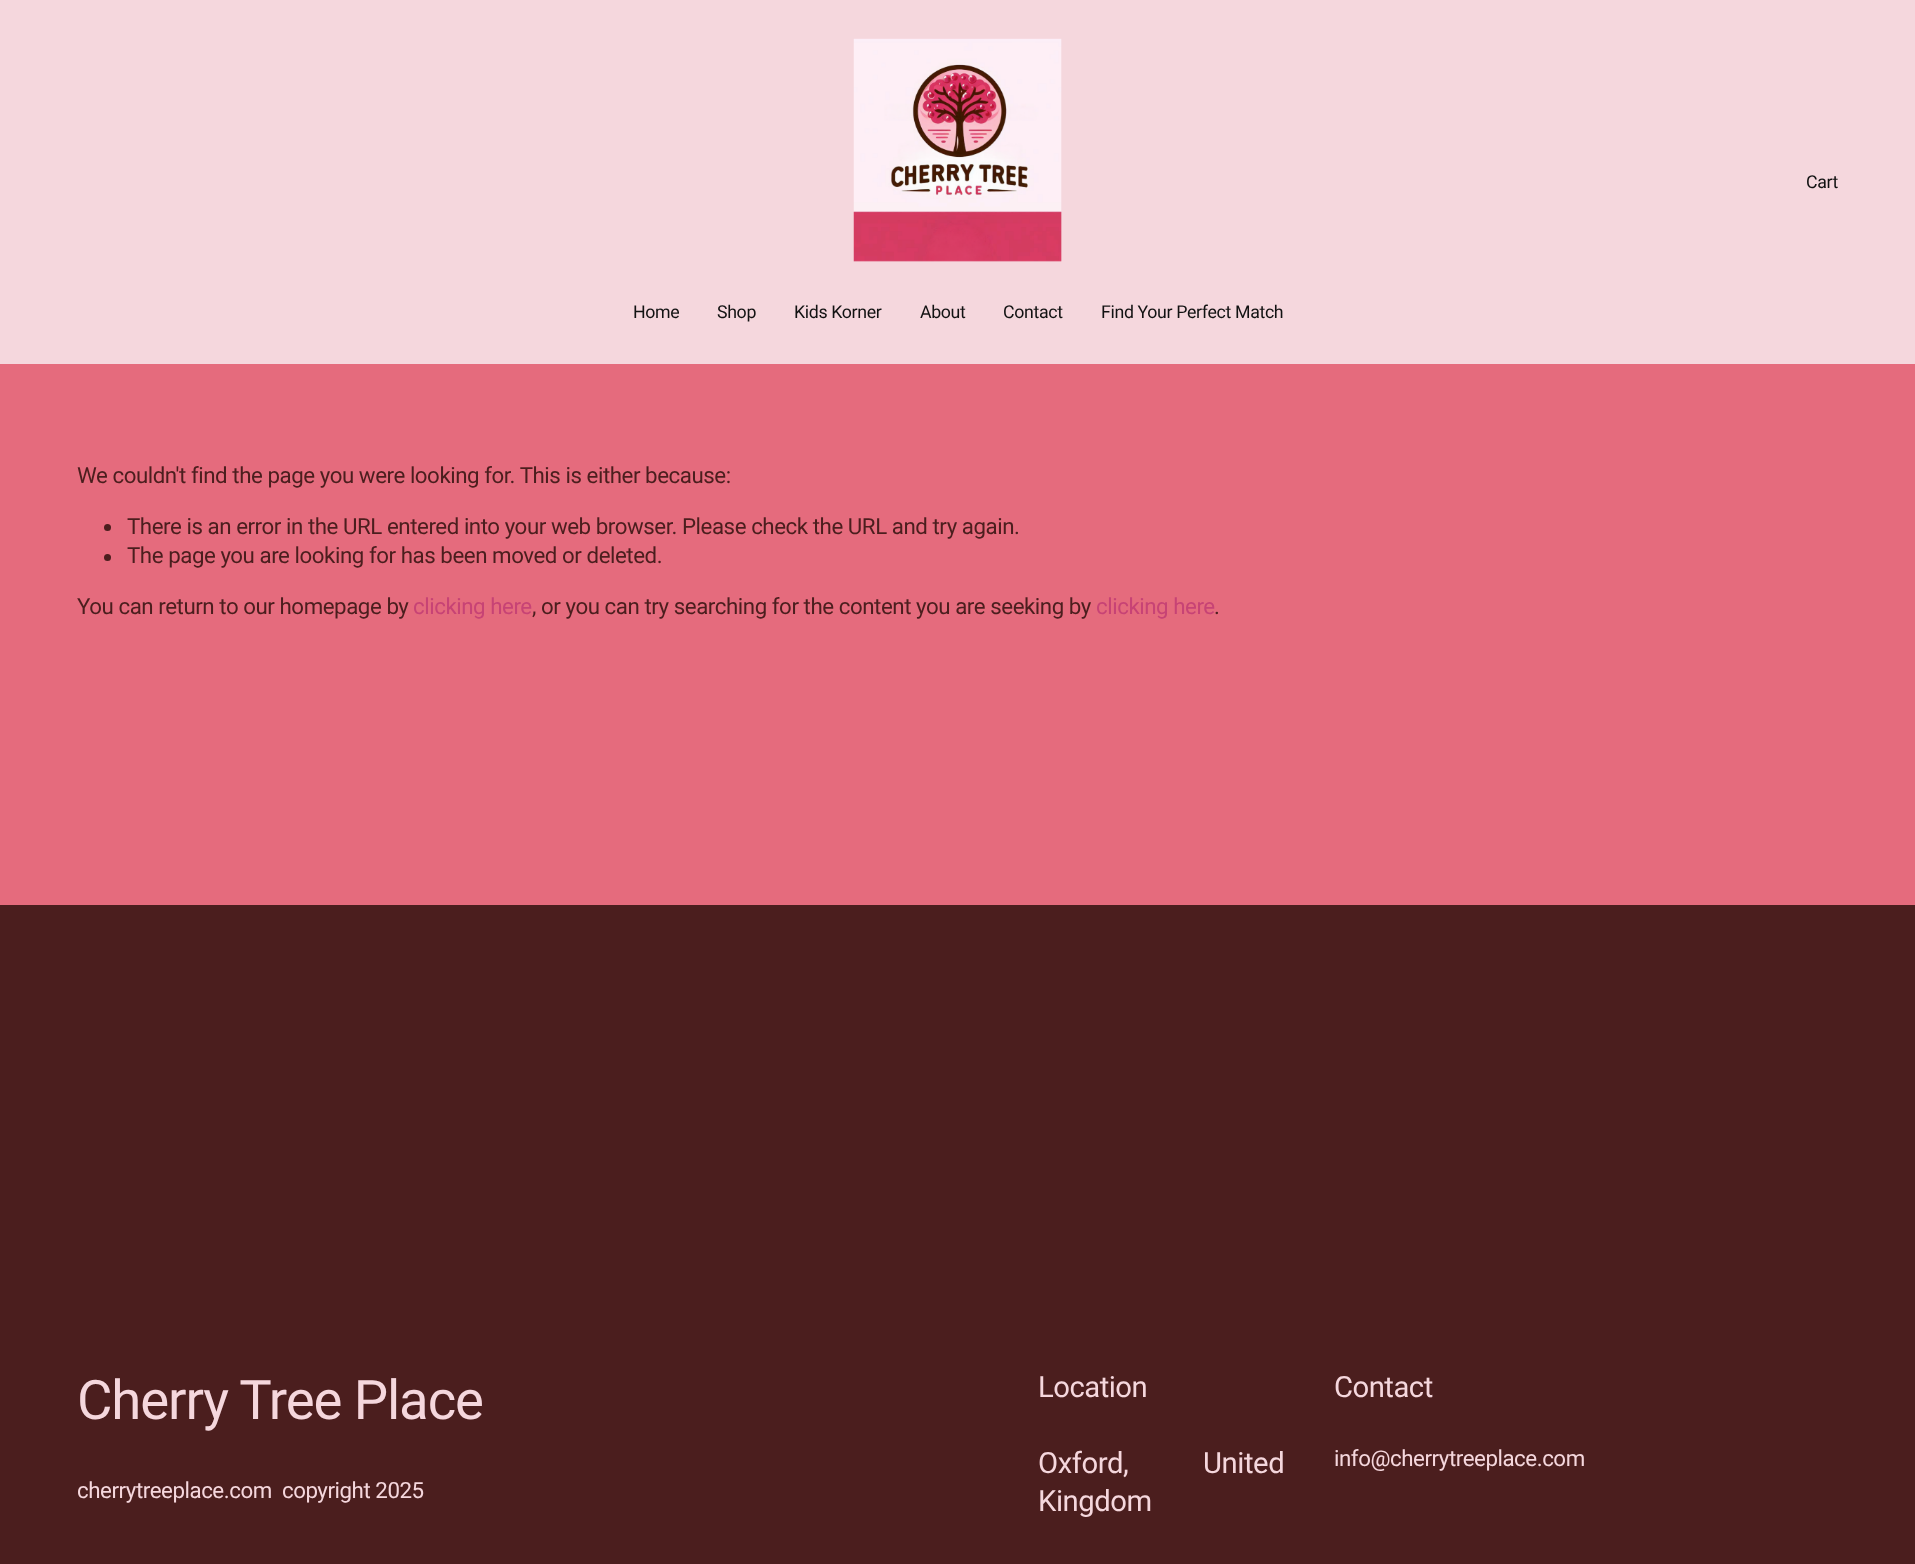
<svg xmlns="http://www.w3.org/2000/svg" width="1915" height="1564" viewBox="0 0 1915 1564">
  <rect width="100%" height="100%" fill="#e56b7d"/>
  <path d="M0 0h1915v364H0z" fill="#f5d7dd"/>
  <image x="853" y="38" width="209" height="224" href="img/1.png"/>
  <circle cx="107.5" cy="527.5" r="3.5" fill="#4b1e1e"/>
  <circle cx="107.5" cy="557.5" r="3.5" fill="#4b1e1e"/>
  <path d="M0 905h1915v659H0z" fill="#4b1e1e"/>
  <g font-family="Roboto" font-size="17.75" letter-spacing="-0.35" fill="#121212">
    <text x="1806" y="188">Cart</text>
    <text x="633" y="318">Home</text>
    <text x="717" y="318">Shop</text>
    <text x="794" y="318">Kids Korner</text>
    <text x="920" y="318">About</text>
    <text x="1003" y="318">Contact</text>
    <text x="1101" y="318">Find Your Perfect Match</text>
  </g>
  <g font-family="Roboto" font-size="22.3" letter-spacing="-0.45" fill="#4b1e1e">
    <text x="77" y="483">We couldn't find the page you were looking for. This is either because:</text>
    <text x="127" y="534">There is an error in the URL entered into your web browser. Please check the URL and try again.</text>
    <text x="127" y="563">The page you are looking for has been moved or deleted.</text>
    <text x="77" y="614">You can return to our homepage by</text>
  </g>
  <text x="413" y="614" font-family="Roboto" font-size="22.3" letter-spacing="-0.45" fill="#c74375">clicking here</text>
  <text x="532" y="614" font-family="Roboto" font-size="22.3" letter-spacing="-0.45" fill="#4b1e1e">, or you can try searching for the content you are seeking by</text>
  <text x="1096" y="614" font-family="Roboto" font-size="22.3" letter-spacing="-0.45" fill="#c74375">clicking here</text>
  <text x="1214" y="614" font-family="Roboto" font-size="22.3" letter-spacing="-0.45" fill="#4b1e1e">.</text>
  <text x="77" y="1419" font-family="Roboto" font-size="54.5" letter-spacing="-1.1" fill="#f5d7dd">Cherry Tree Place</text>
  <text x="1038" y="1397" font-family="Roboto" font-size="29.25" letter-spacing="-0.5" fill="#f5d7dd">Location</text>
  <g font-family="Roboto" font-size="29.25" letter-spacing="-0.45" fill="#f5d7dd">
    <text x="1038" y="1473" xml:space="preserve">Oxford,           United</text>
    <text x="1038" y="1511">Kingdom</text>
  </g>
  <text x="1334" y="1397" font-family="Roboto" font-size="29.25" letter-spacing="-0.5" fill="#f5d7dd">Contact</text>
  <g font-family="Roboto" font-size="22.3" letter-spacing="-0.45" fill="#f5d7dd">
    <text x="1334" y="1466">info@cherrytreeplace.com</text>
    <text x="77" y="1498" xml:space="preserve">cherrytreeplace.com  copyright 2025</text>
  </g>
</svg>
